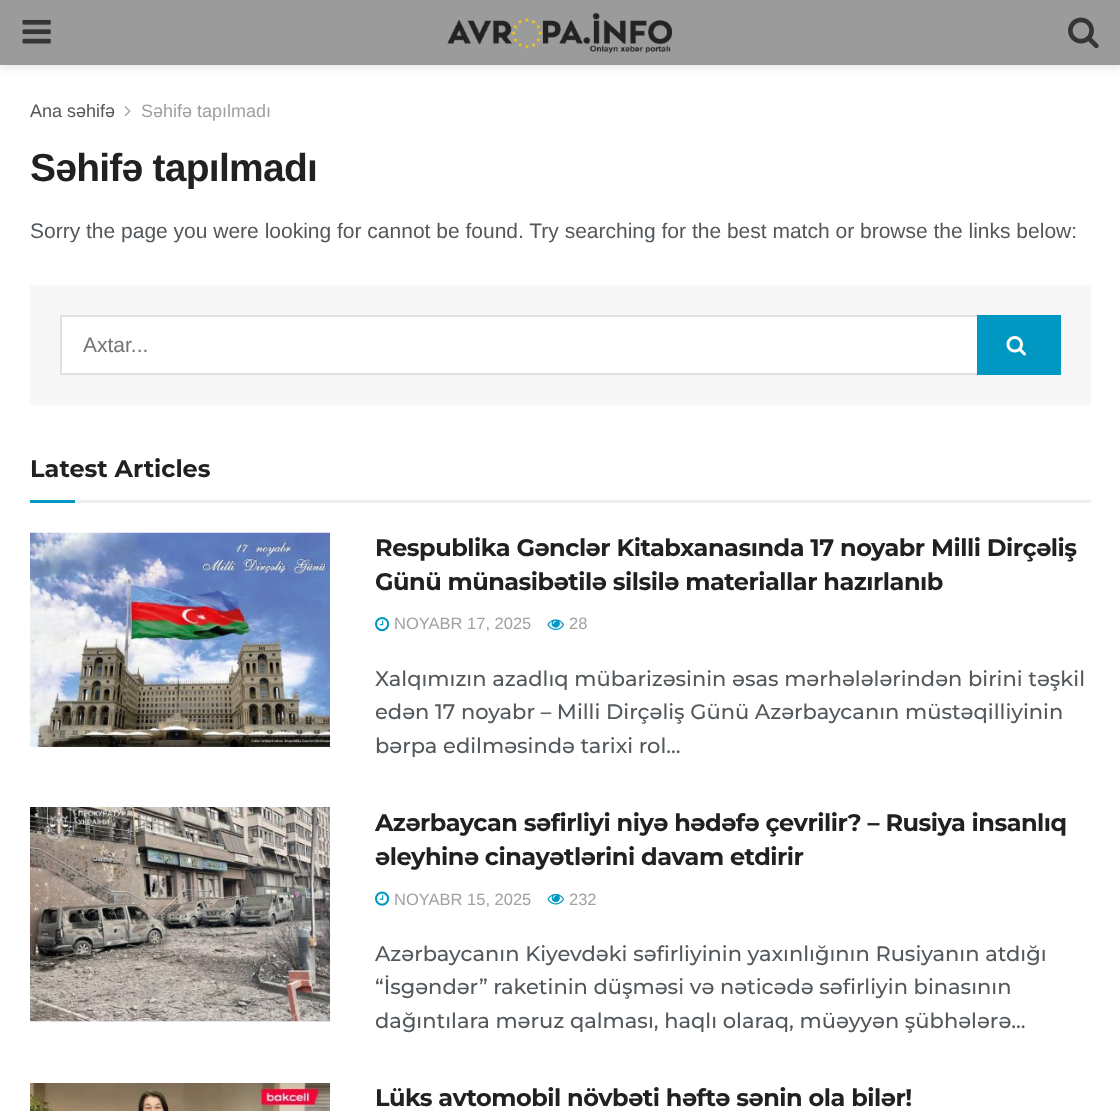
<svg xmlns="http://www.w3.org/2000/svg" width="1120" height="1111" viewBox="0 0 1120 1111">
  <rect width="100%" height="100%" fill="#fff"/>
  <path d="M0 3h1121v65H0z" fill="#0000001a" filter="blur(4.5px)"/>
  <path d="M0 0h1120v65H0z" fill="#9b9b9b"/>
  <image x="22" y="19" width="29" height="25" href="img/1.png"/>
  <image x="447" y="12" width="225" height="42" href="img/2.png"/>
  <image x="1068" y="17" width="31" height="32" href="img/3.png"/>
  <image x="124" y="106" width="7" height="11" href="img/4.png"/>
  <path d="M30 285h1061v120H30z" fill="#f7f7f7"/>
  <path d="M62 317h915v56H62z" fill="#fff"/>
  <path d="M61 316h999v58H61z" fill="none" stroke="#e0e0e0" stroke-width="2"/>
  <path d="M977 315h84v60H977z" fill="#0097c2"/>
  <image x="1006" y="336" width="20" height="20" href="img/5.png"/>
  <path d="M75 500h1016v3H75z" fill="#eee"/>
  <path d="M30 500h45v3H30z" fill="#0097c2"/>
  <image x="30" y="532" width="300" height="215" href="img/6.png"/>
  <image x="375" y="617" width="15" height="15" href="img/7.png"/>
  <image x="547" y="619" width="17" height="11" href="img/8.png"/>
  <path d="M30 1021h300v1H30z" fill="#f7f7f7"/>
  <image x="30" y="807" width="300" height="215" href="img/9.png"/>
  <image x="375" y="891" width="15" height="15" href="img/10.png"/>
  <image x="547" y="893" width="17" height="12" href="img/11.png"/>
  <image x="30" y="1083" width="300" height="28" href="img/12.png"/>
  <text x="30" y="117" font-family="Liberation Sans" font-size="18" fill="#53585c">Ana səhifə</text>
  <text x="141" y="117" font-family="Liberation Sans" font-size="18" fill="#a0a0a0">Səhifə tapılmadı</text>
  <text x="30" y="181" font-family="Liberation Sans" font-size="39" font-weight="bold" letter-spacing="-0.75" fill="#212121">Səhifə tapılmadı</text>
  <text x="30" y="238" font-family="Liberation Sans" font-size="21" fill="#53585c">Sorry the page you were looking for cannot be found. Try searching for the best match or browse the links below:</text>
  <text x="83" y="352" font-family="Liberation Sans" font-size="21" fill="#757575">Axtar...</text>
  <text x="30" y="477" font-family="Montserrat" font-size="24" font-weight="bold" fill="#212121">Latest Articles</text>
  <g font-family="Montserrat" font-size="24" font-weight="bold" letter-spacing="-0.48" fill="#212121">
    <text x="375" y="556">Respublika Gənclər Kitabxanasında 17 noyabr Milli Dirçəliş</text>
    <text x="375" y="590">Günü münasibətilə silsilə materiallar hazırlanıb</text>
  </g>
  <g font-family="Liberation Sans" font-size="16.5" fill="#a0a0a0">
    <text x="394" y="629">NOYABR 17, 2025</text>
    <text x="569" y="629">28</text>
  </g>
  <g font-family="Montserrat" font-size="21" font-weight="500" fill="#53585c">
    <text x="375" y="686">Xalqımızın azadlıq mübarizəsinin əsas mərhələlərindən birini təşkil</text>
    <text x="375" y="719">edən 17 noyabr – Milli Dirçəliş Günü Azərbaycanın müstəqilliyinin</text>
    <text x="375" y="753">bərpa edilməsində tarixi rol...</text>
  </g>
  <g font-family="Montserrat" font-size="24" font-weight="bold" letter-spacing="-0.48" fill="#212121">
    <text x="375" y="831">Azərbaycan səfirliyi niyə hədəfə çevrilir? – Rusiya insanlıq</text>
    <text x="375" y="865">əleyhinə cinayətlərini davam etdirir</text>
  </g>
  <g font-family="Liberation Sans" font-size="16.5" fill="#a0a0a0">
    <text x="394" y="905">NOYABR 15, 2025</text>
    <text x="569" y="905">232</text>
  </g>
  <g font-family="Montserrat" font-size="21" font-weight="500" fill="#53585c">
    <text x="375" y="961">Azərbaycanın Kiyevdəki səfirliyinin yaxınlığının Rusiyanın atdığı</text>
    <text x="375" y="994">“İsgəndər” raketinin düşməsi və nəticədə səfirliyin binasının</text>
    <text x="375" y="1028">dağıntılara məruz qalması, haqlı olaraq, müəyyən şübhələrə...</text>
  </g>
  <text x="375" y="1106" font-family="Montserrat" font-size="24" font-weight="bold" letter-spacing="-0.48" fill="#212121">Lüks avtomobil növbəti həftə sənin ola bilər!</text>
</svg>
